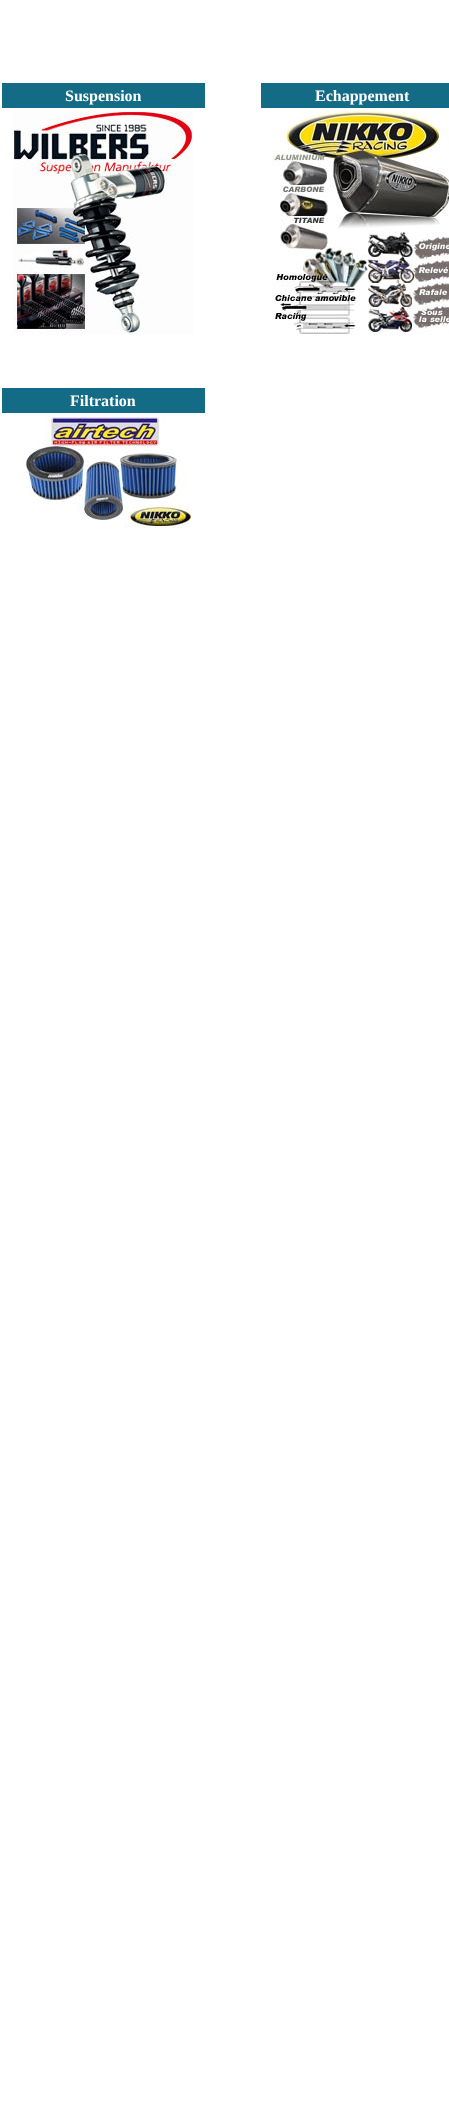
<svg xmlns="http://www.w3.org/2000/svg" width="449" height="2102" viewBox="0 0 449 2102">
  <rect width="100%" height="100%" fill="#fff"/>
  <path d="M2 83h203v25H2z" fill="#146b86"/>
  <path d="M261 83h188v25H261z" fill="#146b86"/>
  <image x="13" y="111" width="180" height="224" href="img/1.png"/>
  <image x="272" y="111" width="177" height="224" href="img/2.png"/>
  <path d="M2 388h203v25H2z" fill="#146b86"/>
  <image x="22" y="416" width="171" height="112" href="img/3.png"/>
  <g font-family="Liberation Serif" font-size="16" font-weight="bold" fill="#fff">
    <text x="65" y="101">Suspension</text>
    <text x="315" y="101">Echappement</text>
    <text x="70" y="406">Filtration</text>
  </g>
</svg>
